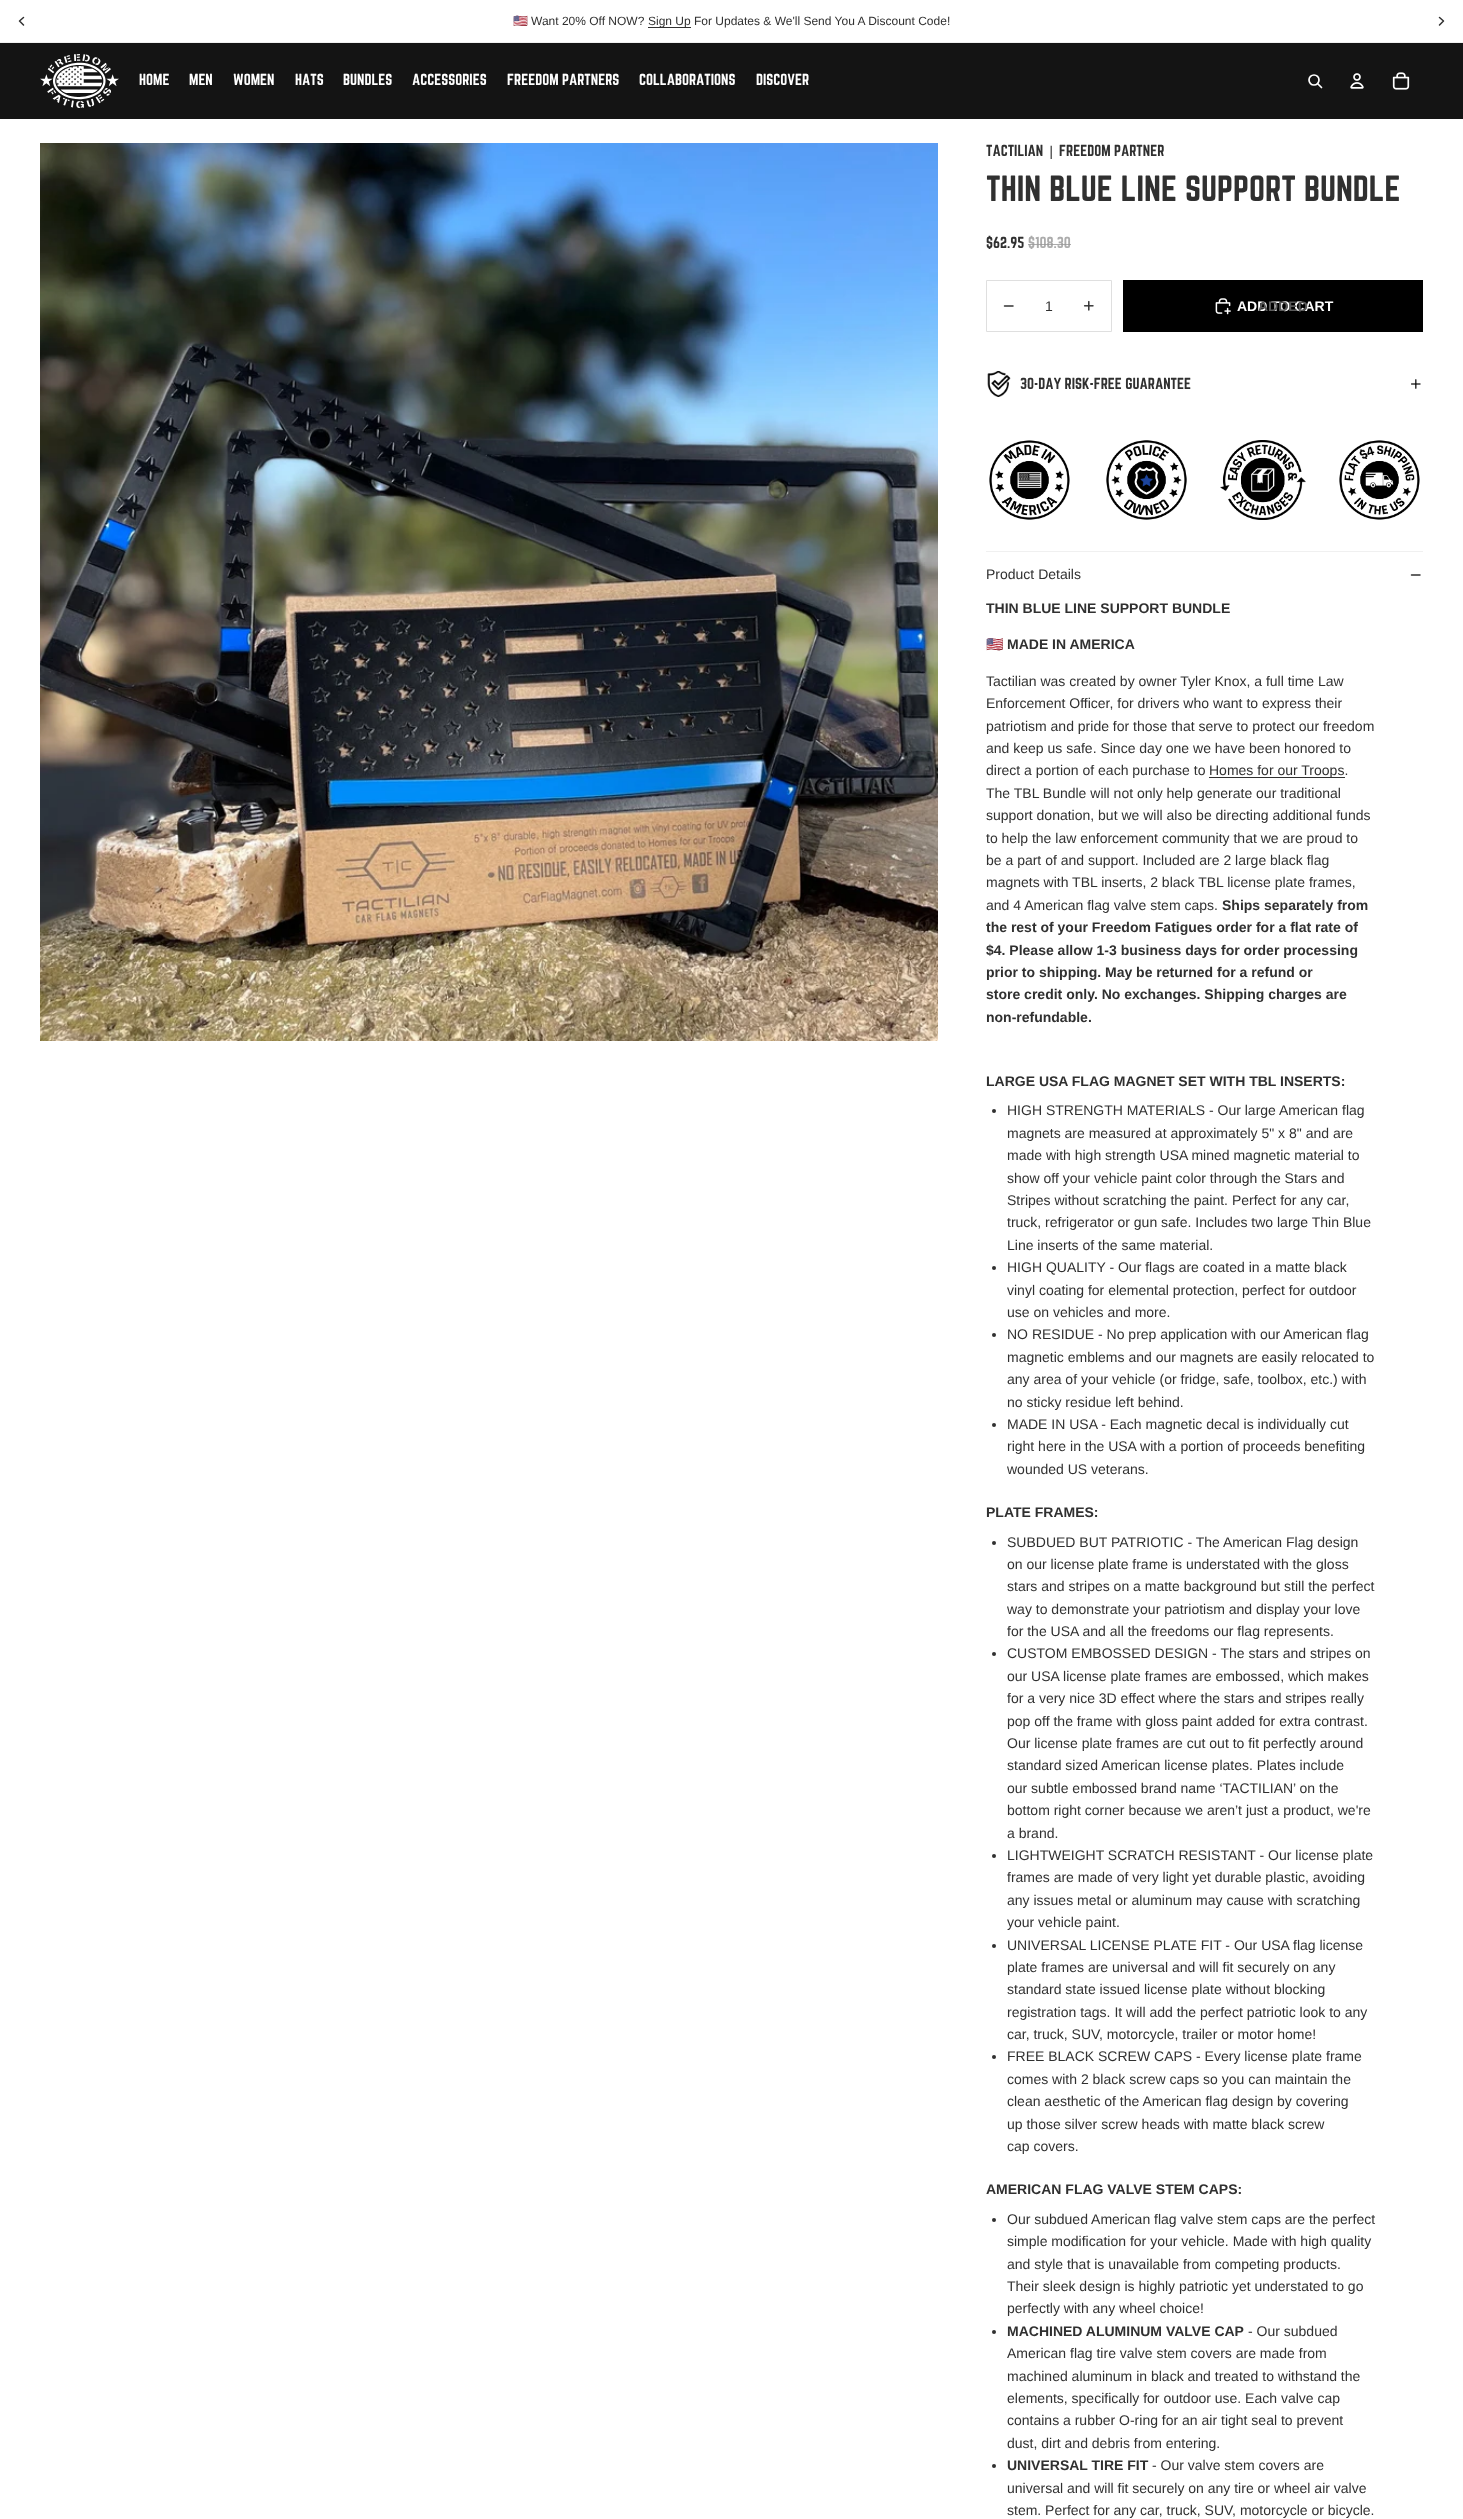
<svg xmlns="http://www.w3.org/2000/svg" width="1463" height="2519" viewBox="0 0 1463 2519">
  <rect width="100%" height="100%" fill="#fff"/>
  <path d="M0 42h1463v1H0z" fill="#f0f0f0"/>
  <path d="M648 27h43v1H648z" fill="#303030"/>
  <path d="M23.5 17.5L19.5 21L23.5 25" fill="none" stroke="#303030" stroke-width="1.5" stroke-linecap="round" stroke-linejoin="round"/>
  <path d="M1439.5 17.5L1443.5 21L1439.5 25" fill="none" stroke="#303030" stroke-width="1.5" stroke-linecap="round" stroke-linejoin="round"/>
  <path d="M0 43h1463v76H0z" fill="#141414"/>
  <image x="40" y="54" width="79" height="54" href="img/1.png"/>
  <circle cx="1314" cy="80" r="5" fill="none" stroke="#fff" stroke-width="1.7"/>
  <path d="M1318 84L1321.5 87.5" fill="none" stroke="#fff" stroke-width="1.7" stroke-linecap="round" stroke-linejoin="round"/>
  <image x="1350" y="73" width="14" height="16" href="img/2.png"/>
  <image x="1392" y="72" width="18" height="18" href="img/3.png"/>
  <image x="40" y="143" width="898" height="898" href="img/4.png"/>
  <path d="M986.5 280.5h125v51H986.5z" fill="none" stroke="#dfdfdf"/>
  <path d="M1004.5 306H1013" fill="none" stroke="#333" stroke-width="1.5" stroke-linecap="round"/>
  <image x="1083" y="300" width="11" height="11" href="img/5.png"/>
  <path d="M1123 280h300v52H1123z" fill="#000"/>
  <image x="1215" y="298" width="16" height="17" href="img/6.png"/>
  <image x="987" y="371" width="24" height="26" href="img/7.png"/>
  <image x="1411" y="379" width="10" height="10" href="img/8.png"/>
  <image x="989" y="440" width="81" height="80" href="img/9.png"/>
  <image x="1106" y="440" width="81" height="80" href="img/10.png"/>
  <image x="1220" y="440" width="86" height="80" href="img/11.png"/>
  <image x="1339" y="440" width="81" height="80" href="img/12.png"/>
  <path d="M986 551h437v1H986z" fill="#f0f0f0"/>
  <path d="M1420 575H1411.5" fill="none" stroke="#303030" stroke-width="1.5" stroke-linecap="round"/>
  <path d="M1209 777h136v1H1209z" fill="#303030"/>
  <circle cx="994" cy="1111" r="2" fill="#303030"/>
  <circle cx="994" cy="1268" r="2" fill="#303030"/>
  <circle cx="994" cy="1335" r="2" fill="#303030"/>
  <circle cx="994" cy="1425" r="2" fill="#303030"/>
  <circle cx="994" cy="1543" r="2" fill="#303030"/>
  <circle cx="994" cy="1654" r="2" fill="#303030"/>
  <circle cx="994" cy="1856" r="2" fill="#303030"/>
  <circle cx="994" cy="1946" r="2" fill="#303030"/>
  <circle cx="994" cy="2057" r="2" fill="#303030"/>
  <circle cx="994" cy="2220" r="2" fill="#303030"/>
  <circle cx="994" cy="2332" r="2" fill="#303030"/>
  <circle cx="994" cy="2466" r="2" fill="#303030"/>
  <text x="513" y="25" font-family="Noto Color Emoji" font-size="12" fill="#303030">🇺🇸</text>
  <g font-family="Liberation Sans" font-size="12" fill="#303030">
    <text x="531" y="25">Want 20% Off NOW?</text>
    <text x="648" y="25">Sign Up</text>
    <text x="694" y="25">For Updates &amp; We'll Send You A Discount Code!</text>
  </g>
  <g font-family="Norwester" font-size="14" fill="#fff">
    <text x="139" y="85">HOME</text>
    <text x="189" y="85">MEN</text>
    <text x="233" y="85">WOMEN</text>
    <text x="295" y="85">HATS</text>
    <text x="343" y="85">BUNDLES</text>
    <text x="412" y="85">ACCESSORIES</text>
    <text x="507" y="85">FREEDOM PARTNERS</text>
    <text x="639" y="85">COLLABORATIONS</text>
    <text x="756" y="85">DISCOVER</text>
  </g>
  <text x="986" y="156" font-family="Norwester" font-size="14" fill="#303030">TACTILIAN</text>
  <text x="1047" y="156" font-family="Liberation Mono" font-size="14" fill="#303030">|</text>
  <text x="1059" y="156" font-family="Norwester" font-size="14" fill="#303030">FREEDOM PARTNER</text>
  <text x="986" y="201" font-family="Norwester" font-size="32" fill="#303030">THIN BLUE LINE SUPPORT BUNDLE</text>
  <text x="986" y="248" font-family="Norwester" font-size="14" fill="#303030">$62.95</text>
  <text x="1028" y="248" font-family="Norwester" font-size="14" fill="#acacac">$108.30</text>
  <path d="M1028 244h43v1H1028z" fill="#999999cf"/>
  <text x="1045" y="311" font-family="Liberation Sans" font-size="14" fill="#303030">1</text>
  <text x="1237" y="311" font-family="Liberation Sans" font-size="14" font-weight="bold" fill="#fff">ADD TO CART</text>
  <text x="1258" y="311" font-family="Liberation Sans" font-size="14" font-weight="bold" fill="#595959">ADDED</text>
  <text x="1020" y="389" font-family="Norwester" font-size="14" fill="#303030">30-DAY RISK-FREE GUARANTEE</text>
  <text x="986" y="579" font-family="Liberation Sans" font-size="14" fill="#303030">Product Details</text>
  <text x="986" y="613" font-family="Liberation Sans" font-size="14" font-weight="bold" fill="#303030">THIN BLUE LINE SUPPORT BUNDLE</text>
  <text x="986" y="649" font-family="Noto Color Emoji" font-size="14" font-weight="bold" fill="#303030">🇺🇸</text>
  <text x="1007" y="649" font-family="Liberation Sans" font-size="14" font-weight="bold" fill="#303030">MADE IN AMERICA</text>
  <g font-family="Liberation Sans" font-size="14" fill="#303030">
    <text x="986" y="686">Tactilian was created by owner Tyler Knox, a full time Law</text>
    <text x="986" y="708">Enforcement Officer, for drivers who want to express their</text>
    <text x="986" y="731">patriotism and pride for those that serve to protect our freedom</text>
    <text x="986" y="753">and keep us safe. Since day one we have been honored to</text>
    <text x="986" y="775">direct a portion of each purchase to</text>
    <text x="1209" y="775">Homes for our Troops.</text>
    <text x="986" y="798">The TBL Bundle will not only help generate our traditional</text>
    <text x="986" y="820">support donation, but we will also be directing additional funds</text>
    <text x="986" y="843">to help the law enforcement community that we are proud to</text>
    <text x="986" y="865">be a part of and support. Included are 2 large black flag</text>
    <text x="986" y="887">magnets with TBL inserts, 2 black TBL license plate frames,</text>
    <text x="986" y="910">and 4 American flag valve stem caps.</text>
  </g>
  <g font-family="Liberation Sans" font-size="14" font-weight="bold" fill="#303030">
    <text x="1222" y="910">Ships separately from</text>
    <text x="986" y="932">the rest of your Freedom Fatigues order for a flat rate of</text>
    <text x="986" y="955">$4. Please allow 1-3 business days for order processing</text>
    <text x="986" y="977">prior to shipping. May be returned for a refund or</text>
    <text x="986" y="999">store credit only. No exchanges. Shipping charges are</text>
    <text x="986" y="1022">non-refundable.</text>
    <text x="986" y="1086">LARGE USA FLAG MAGNET SET WITH TBL INSERTS:</text>
  </g>
  <g font-family="Liberation Sans" font-size="14" fill="#303030">
    <text x="1007" y="1115">HIGH STRENGTH MATERIALS - Our large American flag</text>
    <text x="1007" y="1138">magnets are measured at approximately 5" x 8" and are</text>
    <text x="1007" y="1160">made with high strength USA mined magnetic material to</text>
    <text x="1007" y="1183">show off your vehicle paint color through the Stars and</text>
    <text x="1007" y="1205">Stripes without scratching the paint. Perfect for any car,</text>
    <text x="1007" y="1227">truck, refrigerator or gun safe. Includes two large Thin Blue</text>
    <text x="1007" y="1250">Line inserts of the same material.</text>
    <text x="1007" y="1272">HIGH QUALITY - Our flags are coated in a matte black</text>
    <text x="1007" y="1295">vinyl coating for elemental protection, perfect for outdoor</text>
    <text x="1007" y="1317">use on vehicles and more.</text>
    <text x="1007" y="1339">NO RESIDUE - No prep application with our American flag</text>
    <text x="1007" y="1362">magnetic emblems and our magnets are easily relocated to</text>
    <text x="1007" y="1384">any area of your vehicle (or fridge, safe, toolbox, etc.) with</text>
    <text x="1007" y="1407">no sticky residue left behind.</text>
    <text x="1007" y="1429">MADE IN USA - Each magnetic decal is individually cut</text>
    <text x="1007" y="1451">right here in the USA with a portion of proceeds benefiting</text>
    <text x="1007" y="1474">wounded US veterans.</text>
  </g>
  <text x="986" y="1517" font-family="Liberation Sans" font-size="14" font-weight="bold" fill="#303030">PLATE FRAMES:</text>
  <g font-family="Liberation Sans" font-size="14" fill="#303030">
    <text x="1007" y="1547">SUBDUED BUT PATRIOTIC - The American Flag design</text>
    <text x="1007" y="1569">on our license plate frame is understated with the gloss</text>
    <text x="1007" y="1591">stars and stripes on a matte background but still the perfect</text>
    <text x="1007" y="1614">way to demonstrate your patriotism and display your love</text>
    <text x="1007" y="1636">for the USA and all the freedoms our flag represents.</text>
    <text x="1007" y="1658">CUSTOM EMBOSSED DESIGN - The stars and stripes on</text>
    <text x="1007" y="1681">our USA license plate frames are embossed, which makes</text>
    <text x="1007" y="1703">for a very nice 3D effect where the stars and stripes really</text>
    <text x="1007" y="1726">pop off the frame with gloss paint added for extra contrast.</text>
    <text x="1007" y="1748">Our license plate frames are cut out to fit perfectly around</text>
    <text x="1007" y="1770">standard sized American license plates. Plates include</text>
    <text x="1007" y="1793">our subtle embossed brand name ‘TACTILIAN’ on the</text>
    <text x="1007" y="1815">bottom right corner because we aren’t just a product, we're</text>
    <text x="1007" y="1838">a brand.</text>
    <text x="1007" y="1860">LIGHTWEIGHT SCRATCH RESISTANT - Our license plate</text>
    <text x="1007" y="1882">frames are made of very light yet durable plastic, avoiding</text>
    <text x="1007" y="1905">any issues metal or aluminum may cause with scratching</text>
    <text x="1007" y="1927">your vehicle paint.</text>
    <text x="1007" y="1950">UNIVERSAL LICENSE PLATE FIT - Our USA flag license</text>
    <text x="1007" y="1972">plate frames are universal and will fit securely on any</text>
    <text x="1007" y="1994">standard state issued license plate without blocking</text>
    <text x="1007" y="2017">registration tags. It will add the perfect patriotic look to any</text>
    <text x="1007" y="2039">car, truck, SUV, motorcycle, trailer or motor home!</text>
    <text x="1007" y="2061">FREE BLACK SCREW CAPS - Every license plate frame</text>
    <text x="1007" y="2084">comes with 2 black screw caps so you can maintain the</text>
    <text x="1007" y="2106">clean aesthetic of the American flag design by covering</text>
    <text x="1007" y="2129">up those silver screw heads with matte black screw</text>
    <text x="1007" y="2151">cap covers.</text>
  </g>
  <text x="986" y="2194" font-family="Liberation Sans" font-size="14" font-weight="bold" fill="#303030">AMERICAN FLAG VALVE STEM CAPS:</text>
  <g font-family="Liberation Sans" font-size="14" fill="#303030">
    <text x="1007" y="2224">Our subdued American flag valve stem caps are the perfect</text>
    <text x="1007" y="2246">simple modification for your vehicle. Made with high quality</text>
    <text x="1007" y="2269">and style that is unavailable from competing products.</text>
    <text x="1007" y="2291">Their sleek design is highly patriotic yet understated to go</text>
    <text x="1007" y="2313">perfectly with any wheel choice!</text>
  </g>
  <text x="1007" y="2336" font-family="Liberation Sans" font-size="14" font-weight="bold" fill="#303030">MACHINED ALUMINUM VALVE CAP</text>
  <g font-family="Liberation Sans" font-size="14" fill="#303030">
    <text x="1248" y="2336">- Our subdued</text>
    <text x="1007" y="2358">American flag tire valve stem covers are made from</text>
    <text x="1007" y="2381">machined aluminum in black and treated to withstand the</text>
    <text x="1007" y="2403">elements, specifically for outdoor use. Each valve cap</text>
    <text x="1007" y="2425">contains a rubber O-ring for an air tight seal to prevent</text>
    <text x="1007" y="2448">dust, dirt and debris from entering.</text>
  </g>
  <text x="1007" y="2470" font-family="Liberation Sans" font-size="14" font-weight="bold" fill="#303030">UNIVERSAL TIRE FIT</text>
  <g font-family="Liberation Sans" font-size="14" fill="#303030">
    <text x="1152" y="2470">- Our valve stem covers are</text>
    <text x="1007" y="2493">universal and will fit securely on any tire or wheel air valve</text>
    <text x="1007" y="2515">stem. Perfect for any car, truck, SUV, motorcycle or bicycle.</text>
  </g>
</svg>
